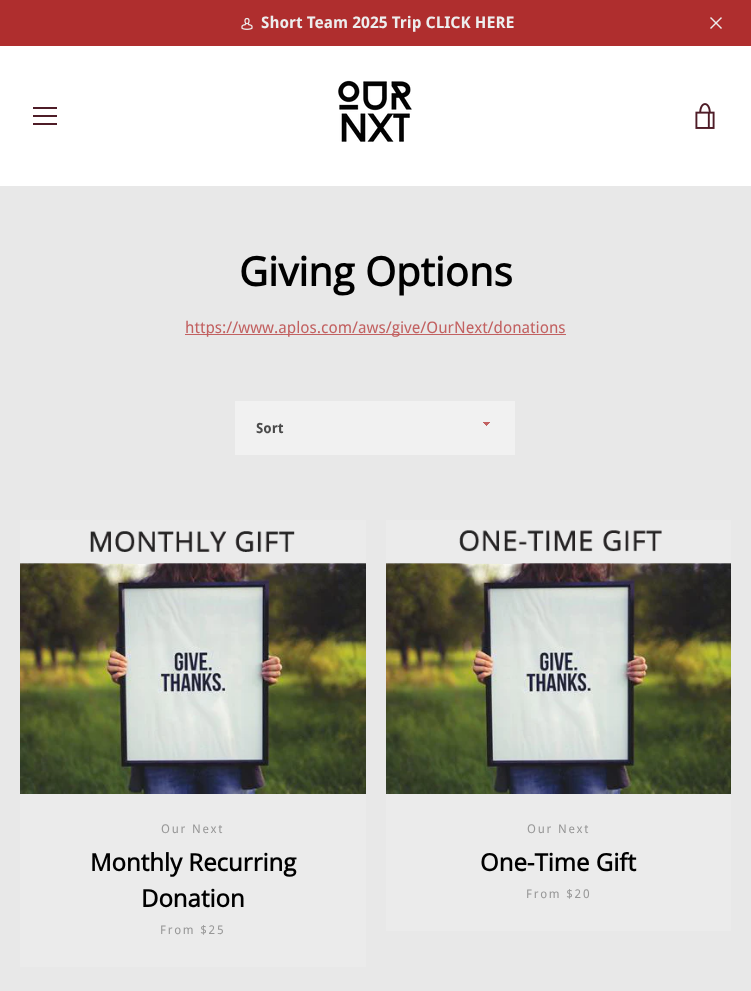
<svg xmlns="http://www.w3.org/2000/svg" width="751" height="991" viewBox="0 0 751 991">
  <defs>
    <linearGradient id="g1" gradientUnits="userSpaceOnUse" x1="487" y1="422" x2="491" y2="426"><stop offset="0.5" stop-color="#c26161"/><stop offset="0.5" stop-color="#f1f1f1"/></linearGradient>
    <linearGradient id="g2" gradientUnits="userSpaceOnUse" x1="483" y1="426" x2="487" y2="422"><stop offset="0.5" stop-color="#f1f1f1"/><stop offset="0.5" stop-color="#c26161"/></linearGradient>
  </defs>
  <rect width="100%" height="100%" fill="#e8e8e8"/>
  <path d="M0 46h751v140H0z" fill="#fff"/>
  <path d="M0 0h751v46H0z" fill="#af2e2e"/>
  <image x="241" y="17" width="12" height="13" href="img/1.png"/>
  <image x="710" y="17" width="12" height="12" href="img/2.png"/>
  <path d="M33 107h24v2H33z" fill="#4e1c27"/>
  <path d="M33 115h24v2H33z" fill="#4e1c27"/>
  <path d="M33 123h24v2H33z" fill="#4e1c27"/>
  <image x="338" y="80" width="74" height="62" href="img/3.png"/>
  <image x="695" y="103" width="20" height="26" href="img/4.png"/>
  <path d="M185 334h381v1H185z" fill="#c26161"/>
  <path d="M235 401h280v54H235z" fill="#f1f1f1"/>
  <path d="M487 422h4v3H487z" fill="url(#g1)"/>
  <path d="M483 422h4v4H483z" fill="url(#g2)"/>
  <path d="M20 520h346v447H20z" fill="#ebebeb"/>
  <image x="20" y="531" width="346" height="263" href="img/5.png"/>
  <path d="M386 520h345v411H386z" fill="#ebebeb"/>
  <image x="386" y="530" width="345" height="264" href="img/6.png"/>
  <text x="261" y="28" font-family="Droid Sans" font-size="16" font-weight="bold" fill="#ededed">Short Team 2025 Trip CLICK HERE</text>
  <text x="239" y="286" font-family="Open Sans" font-size="40" font-weight="bold" fill="#000">Giving Options</text>
  <text x="185" y="333" font-family="Droid Sans" font-size="16" fill="#c26161">https://www.aplos.com/aws/give/OurNext/donations</text>
  <text x="256" y="433" font-family="Droid Sans" font-size="14" font-weight="bold" fill="#4a4a4a">Sort</text>
  <text x="161" y="833" font-family="Droid Sans" font-size="12" letter-spacing="1.75" fill="#979797">Our Next</text>
  <g font-family="Open Sans" font-size="24" font-weight="bold" fill="#000">
    <text x="90" y="871">Monthly Recurring</text>
    <text x="141" y="907">Donation</text>
  </g>
  <g font-family="Droid Sans" font-size="12" letter-spacing="1.75" fill="#979797">
    <text x="160" y="934">From $25</text>
    <text x="527" y="833">Our Next</text>
  </g>
  <text x="480" y="871" font-family="Open Sans" font-size="24" font-weight="bold" fill="#000">One-Time Gift</text>
  <text x="526" y="898" font-family="Droid Sans" font-size="12" letter-spacing="1.75" fill="#979797">From $20</text>
</svg>
